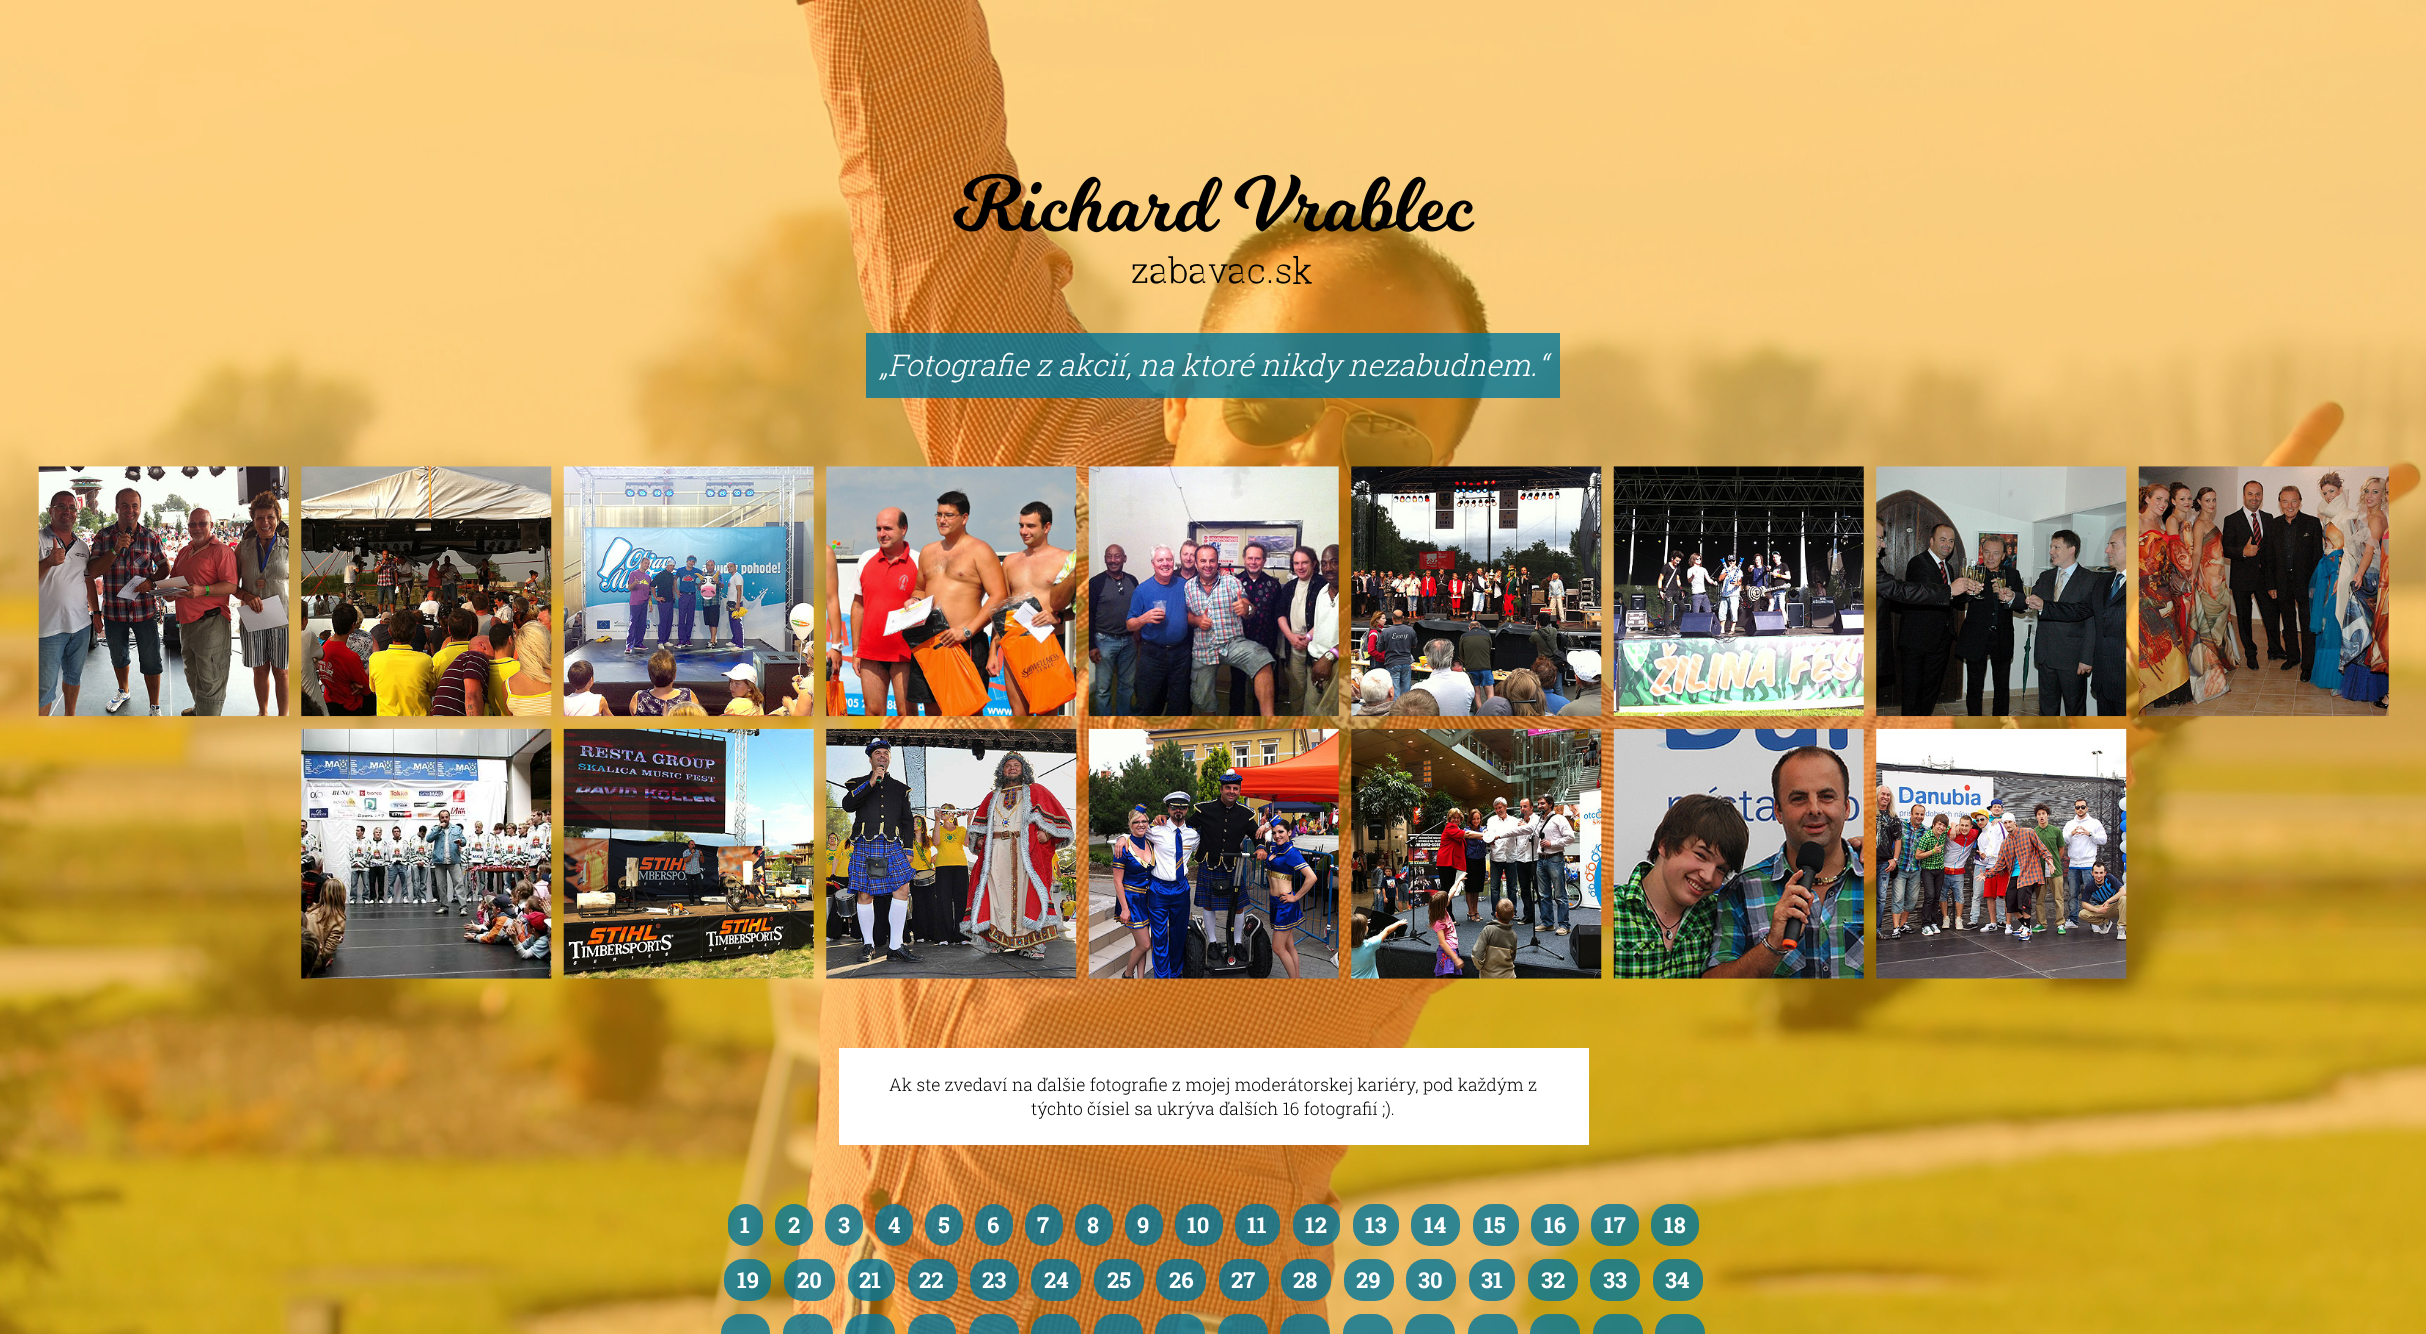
<svg xmlns="http://www.w3.org/2000/svg" width="2426" height="1334" viewBox="0 0 2426 1334">
  <rect width="100%" height="100%" fill="#fff"/>
  <image x="0" y="0" width="2426" height="1334" href="img/1.png"/>
  <image x="953" y="173" width="522" height="111" href="img/2.png"/>
  <path d="M866 333h694v65H866z" fill="#01779bcc"/>
  <image x="38" y="466" width="251" height="251" href="img/3.png"/>
  <image x="301" y="466" width="251" height="251" href="img/4.png"/>
  <image x="563" y="466" width="251" height="251" href="img/5.png"/>
  <image x="826" y="466" width="251" height="251" href="img/6.png"/>
  <image x="1088" y="466" width="251" height="251" href="img/7.png"/>
  <image x="1351" y="466" width="251" height="251" href="img/8.png"/>
  <image x="1613" y="466" width="251" height="251" href="img/9.png"/>
  <image x="1876" y="466" width="251" height="251" href="img/10.png"/>
  <image x="2138" y="466" width="251" height="251" href="img/11.png"/>
  <image x="301" y="728" width="251" height="251" href="img/12.png"/>
  <image x="563" y="728" width="251" height="251" href="img/13.png"/>
  <image x="826" y="728" width="251" height="251" href="img/14.png"/>
  <image x="1088" y="728" width="251" height="251" href="img/15.png"/>
  <image x="1351" y="728" width="251" height="251" href="img/16.png"/>
  <image x="1613" y="728" width="251" height="251" href="img/17.png"/>
  <image x="1876" y="728" width="251" height="251" href="img/18.png"/>
  <path d="M839 1048h750v97H839z" fill="#fff"/>
  <rect x="728" y="1204" width="35" height="42" rx="17.5" fill="#01779bcc"/>
  <rect x="775" y="1204" width="38" height="42" rx="19" fill="#01779bcc"/>
  <rect x="825" y="1204" width="38" height="42" rx="19" fill="#01779bcc"/>
  <rect x="875" y="1204" width="38" height="42" rx="19" fill="#01779bcc"/>
  <rect x="925" y="1204" width="38" height="42" rx="19" fill="#01779bcc"/>
  <rect x="975" y="1204" width="38" height="42" rx="19" fill="#01779bcc"/>
  <rect x="1025" y="1204" width="38" height="42" rx="19" fill="#01779bcc"/>
  <rect x="1075" y="1204" width="38" height="42" rx="19" fill="#01779bcc"/>
  <rect x="1125" y="1204" width="38" height="42" rx="19" fill="#01779bcc"/>
  <rect x="1175" y="1204" width="48" height="42" rx="19" fill="#01779bcc"/>
  <rect x="1235" y="1204" width="45" height="42" rx="19" fill="#01779bcc"/>
  <rect x="1293" y="1204" width="47" height="42" rx="19" fill="#01779bcc"/>
  <rect x="1353" y="1204" width="46" height="42" rx="19" fill="#01779bcc"/>
  <rect x="1411" y="1204" width="49" height="42" rx="19" fill="#01779bcc"/>
  <rect x="1473" y="1204" width="46" height="42" rx="19" fill="#01779bcc"/>
  <rect x="1531" y="1204" width="48" height="42" rx="19" fill="#01779bcc"/>
  <rect x="1591" y="1204" width="48" height="42" rx="19" fill="#01779bcc"/>
  <rect x="1651" y="1204" width="48" height="42" rx="19" fill="#01779bcc"/>
  <rect x="724" y="1259" width="47" height="42" rx="19" fill="#01779bcc"/>
  <rect x="784" y="1259" width="51" height="42" rx="19" fill="#01779bcc"/>
  <rect x="848" y="1259" width="47" height="42" rx="19" fill="#01779bcc"/>
  <rect x="908" y="1259" width="50" height="42" rx="19" fill="#01779bcc"/>
  <rect x="970" y="1259" width="49" height="42" rx="19" fill="#01779bcc"/>
  <rect x="1031" y="1259" width="50" height="42" rx="19" fill="#01779bcc"/>
  <rect x="1094" y="1259" width="50" height="42" rx="19" fill="#01779bcc"/>
  <rect x="1156" y="1259" width="50" height="42" rx="19" fill="#01779bcc"/>
  <rect x="1219" y="1259" width="50" height="42" rx="19" fill="#01779bcc"/>
  <rect x="1281" y="1259" width="50" height="42" rx="19" fill="#01779bcc"/>
  <rect x="1344" y="1259" width="50" height="42" rx="19" fill="#01779bcc"/>
  <rect x="1406" y="1259" width="50" height="42" rx="19" fill="#01779bcc"/>
  <rect x="1469" y="1259" width="46" height="42" rx="19" fill="#01779bcc"/>
  <rect x="1528" y="1259" width="50" height="42" rx="19" fill="#01779bcc"/>
  <rect x="1590" y="1259" width="50" height="42" rx="19" fill="#01779bcc"/>
  <rect x="1653" y="1259" width="50" height="42" rx="19" fill="#01779bcc"/>
  <rect x="721" y="1314" width="49" height="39" rx="19" fill="#01779bcc"/>
  <rect x="783" y="1314" width="50" height="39" rx="19" fill="#01779bcc"/>
  <rect x="845" y="1314" width="50" height="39" rx="19" fill="#01779bcc"/>
  <rect x="908" y="1314" width="48" height="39" rx="19" fill="#01779bcc"/>
  <rect x="969" y="1314" width="50" height="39" rx="19" fill="#01779bcc"/>
  <rect x="1031" y="1314" width="50" height="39" rx="19" fill="#01779bcc"/>
  <rect x="1094" y="1314" width="49" height="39" rx="19" fill="#01779bcc"/>
  <rect x="1155" y="1314" width="50" height="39" rx="19" fill="#01779bcc"/>
  <rect x="1218" y="1314" width="50" height="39" rx="19" fill="#01779bcc"/>
  <rect x="1280" y="1314" width="50" height="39" rx="19" fill="#01779bcc"/>
  <rect x="1343" y="1314" width="50" height="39" rx="19" fill="#01779bcc"/>
  <rect x="1405" y="1314" width="50" height="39" rx="19" fill="#01779bcc"/>
  <rect x="1468" y="1314" width="50" height="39" rx="19" fill="#01779bcc"/>
  <rect x="1530" y="1314" width="50" height="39" rx="19" fill="#01779bcc"/>
  <rect x="1593" y="1314" width="50" height="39" rx="19" fill="#01779bcc"/>
  <rect x="1655" y="1314" width="50" height="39" rx="19" fill="#01779bcc"/>
  <g font-family="Roboto Slab" font-size="30" font-weight="300" font-style="italic" fill="#fff">
    <text x="888" y="376" word-spacing="-0.5">Fotografie z akcií, na ktoré nikdy nezabudnem.</text>
    <text x="1538" y="376">“</text>
    <text x="879" y="376">„</text>
  </g>
  <g font-family="Roboto Slab" font-size="17.5" font-weight="300" fill="#000">
    <text x="889" y="1091">Ak ste zvedaví na ďalšie fotografie z mojej moderátorskej kariéry, pod každým z</text>
    <text x="1031" y="1115">týchto čísiel sa ukrýva ďalších 16 fotografií ;).</text>
  </g>
  <g font-family="Roboto Slab" font-size="22" font-weight="bold" fill="#fff">
    <text x="740" y="1233">1</text>
    <text x="788" y="1233">2</text>
    <text x="838" y="1233">3</text>
    <text x="888" y="1233">4</text>
    <text x="938" y="1233">5</text>
    <text x="987" y="1233">6</text>
    <text x="1037" y="1233">7</text>
    <text x="1087" y="1233">8</text>
    <text x="1137" y="1233">9</text>
    <text x="1187" y="1233">10</text>
    <text x="1247" y="1233">11</text>
    <text x="1305" y="1233">12</text>
    <text x="1365" y="1233">13</text>
    <text x="1424" y="1233">14</text>
    <text x="1484" y="1233">15</text>
    <text x="1544" y="1233">16</text>
    <text x="1604" y="1233">17</text>
    <text x="1664" y="1233">18</text>
    <text x="737" y="1288">19</text>
    <text x="797" y="1288">20</text>
    <text x="859" y="1288">21</text>
    <text x="919" y="1288">22</text>
    <text x="982" y="1288">23</text>
    <text x="1044" y="1288">24</text>
    <text x="1107" y="1288">25</text>
    <text x="1169" y="1288">26</text>
    <text x="1231" y="1288">27</text>
    <text x="1293" y="1288">28</text>
    <text x="1356" y="1288">29</text>
    <text x="1418" y="1288">30</text>
    <text x="1481" y="1288">31</text>
    <text x="1541" y="1288">32</text>
    <text x="1603" y="1288">33</text>
    <text x="1665" y="1288">34</text>
  </g>
</svg>
